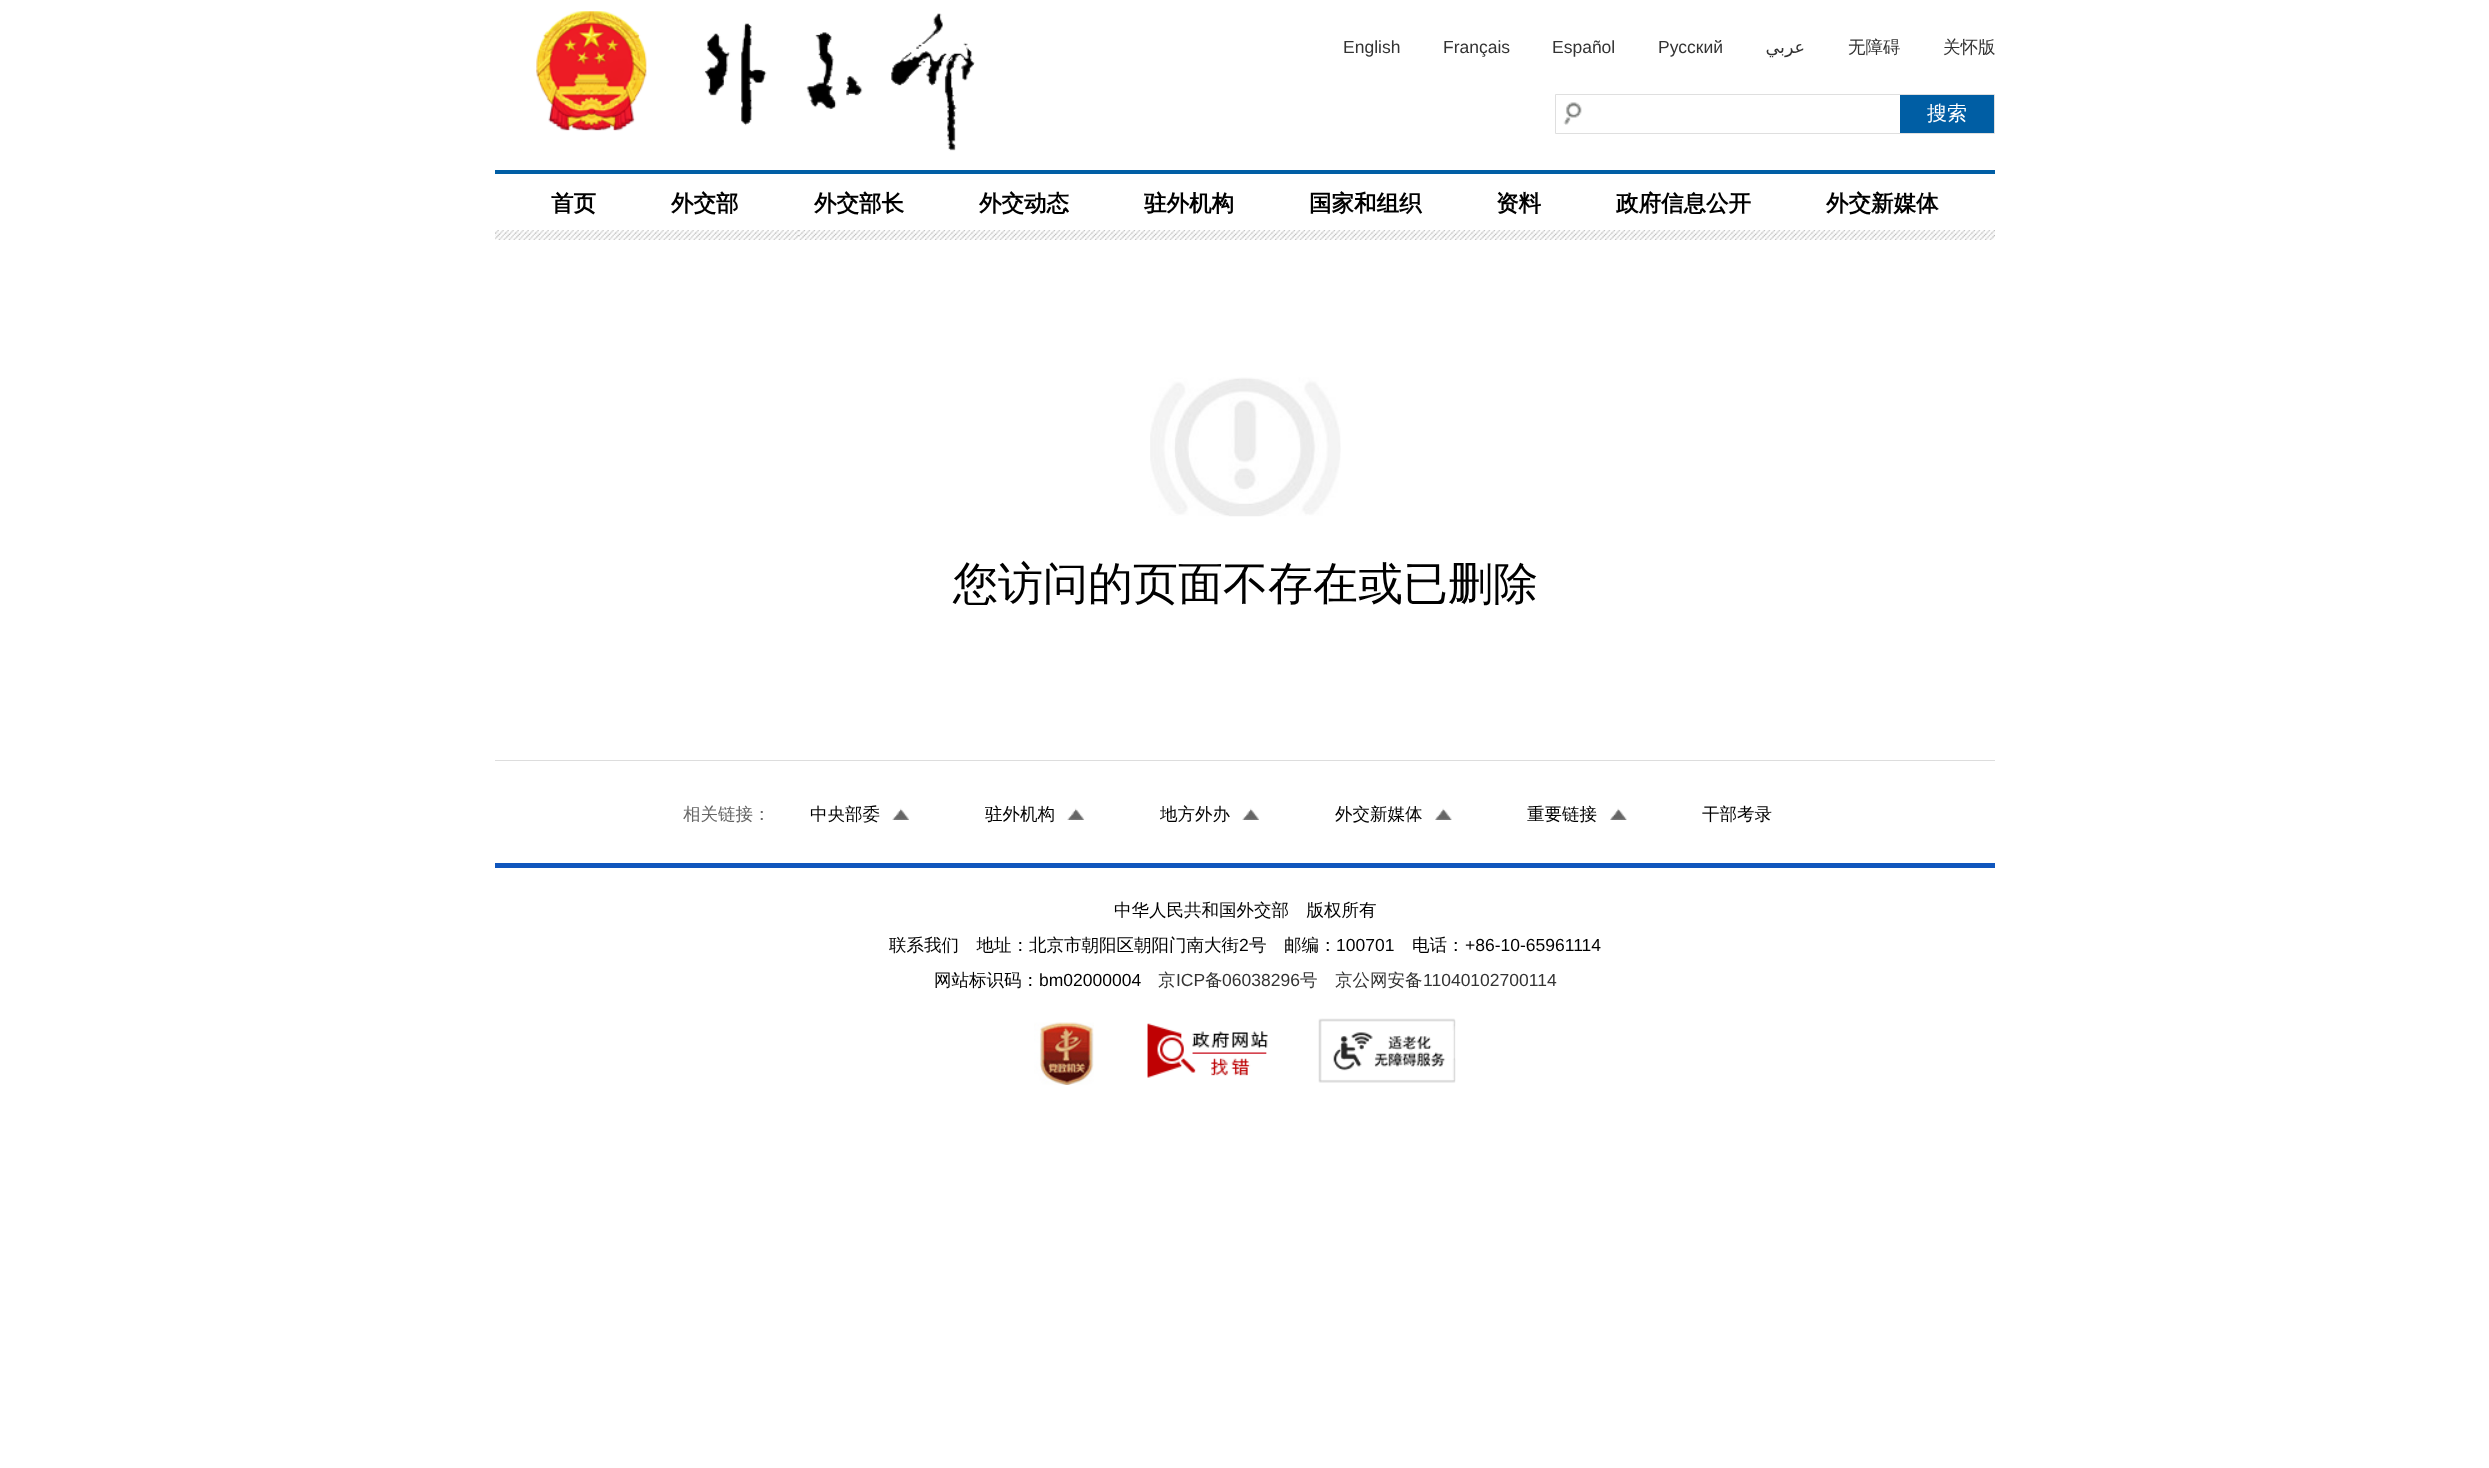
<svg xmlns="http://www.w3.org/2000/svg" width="2489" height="1468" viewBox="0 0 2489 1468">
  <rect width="100%" height="100%" fill="#fff"/>
  <image x="536" y="11" width="439" height="140" href="img/1.png"/>
  <path d="M1555.5 94.5h439v39H1555.5z" fill="none" stroke="#dfdfdf"/>
  <image x="1563" y="102" width="19" height="23" href="img/2.png"/>
  <path d="M1900 95h94v38H1900z" fill="#005ea4"/>
  <path d="M495 170h1500v4H495z" fill="#005ea5"/>
  <image x="495" y="230" width="1500" height="10" href="img/3.png"/>
  <image x="1150" y="377" width="191" height="140" href="img/4.png"/>
  <path d="M495 760h1500v1H495z" fill="#ddd"/>
  <image x="892" y="808" width="18" height="12" href="img/5.png"/>
  <image x="1067" y="808" width="18" height="12" href="img/6.png"/>
  <image x="1242" y="808" width="18" height="12" href="img/5.png"/>
  <image x="1435" y="808" width="17" height="12" href="img/7.png"/>
  <image x="1610" y="808" width="17" height="12" href="img/7.png"/>
  <path d="M495 863h1500v5H495z" fill="#1056bd"/>
  <image x="1034" y="1022" width="60" height="63" href="img/8.png"/>
  <image x="1147" y="1023" width="121" height="55" href="img/9.png"/>
  <image x="1318" y="1018" width="138" height="65" href="img/10.png"/>
  <g font-family="Liberation Sans" font-size="17.5" fill="#333">
    <text x="1343" y="53">English</text>
    <text x="1443" y="53">Français</text>
    <text x="1552" y="53">Español</text>
    <text x="1658" y="53">Русский</text>
  </g>
  <text x="1805" y="53" font-family="DejaVu Sans" font-size="17.5" direction="rtl" fill="#333">عربي</text>
  <g font-family="WenQuanYi Zen Hei" font-size="17.5" font-weight="500" fill="#333">
    <text x="1848" y="53">无障碍</text>
    <text x="1943" y="53">关怀版</text>
  </g>
  <text x="1927" y="120" font-family="WenQuanYi Zen Hei" font-size="20" font-weight="500" fill="#fff">搜索</text>
  <g font-family="WenQuanYi Zen Hei" font-size="22.5" font-weight="bold" fill="#000">
    <text x="551" y="211">首页</text>
    <text x="671" y="211">外交部</text>
    <text x="814" y="211">外交部长</text>
    <text x="979" y="211">外交动态</text>
    <text x="1144" y="211">驻外机构</text>
    <text x="1309" y="211">国家和组织</text>
    <text x="1496" y="211">资料</text>
    <text x="1616" y="211">政府信息公开</text>
    <text x="1826" y="211">外交新媒体</text>
  </g>
  <text x="953" y="599" font-family="WenQuanYi Zen Hei" font-size="45" font-weight="500" fill="#000">您访问的页面不存在或已删除</text>
  <text x="683" y="820" font-family="WenQuanYi Zen Hei" font-size="17.5" font-weight="500" fill="#666">相关链接：</text>
  <g font-family="WenQuanYi Zen Hei" font-size="17.5" font-weight="500" fill="#000">
    <text x="810" y="820">中央部委</text>
    <text x="985" y="820">驻外机构</text>
    <text x="1160" y="820">地方外办</text>
    <text x="1335" y="820">外交新媒体</text>
    <text x="1527" y="820">重要链接</text>
    <text x="1702" y="820">干部考录</text>
    <text x="1114" y="916">中华人民共和国外交部　版权所有</text>
    <text x="889" y="951">联系我们　地址：北京市朝阳区朝阳门南大街</text>
  </g>
  <text x="1239" y="951" font-family="Liberation Sans" font-size="17.5" fill="#000">2</text>
  <text x="1249" y="951" font-family="WenQuanYi Zen Hei" font-size="17.5" font-weight="500" fill="#000">号　邮编：</text>
  <text x="1336" y="951" font-family="Liberation Sans" font-size="17.5" fill="#000">100701</text>
  <text x="1412" y="951" font-family="WenQuanYi Zen Hei" font-size="17.5" font-weight="500" fill="#000">电话：</text>
  <text x="1465" y="951" font-family="Liberation Sans" font-size="17.5" fill="#000">+86-10-65961114</text>
  <text x="934" y="986" font-family="WenQuanYi Zen Hei" font-size="17.5" font-weight="500" fill="#000">网站标识码：</text>
  <text x="1039" y="986" font-family="Liberation Sans" font-size="17.5" fill="#000">bm02000004</text>
  <text x="1158" y="986" font-family="WenQuanYi Zen Hei" font-size="17.5" font-weight="500" fill="#333">京</text>
  <text x="1176" y="986" font-family="Liberation Sans" font-size="17.5" fill="#333">ICP</text>
  <text x="1205" y="986" font-family="WenQuanYi Zen Hei" font-size="17.5" font-weight="500" fill="#333">备</text>
  <text x="1222" y="986" font-family="Liberation Sans" font-size="17.5" fill="#333">06038296</text>
  <g font-family="WenQuanYi Zen Hei" font-size="17.5" font-weight="500" fill="#333">
    <text x="1300" y="986">号</text>
    <text x="1335" y="986">京公网安备</text>
  </g>
  <text x="1423" y="986" font-family="Liberation Sans" font-size="17.5" fill="#333">11040102700114</text>
</svg>
